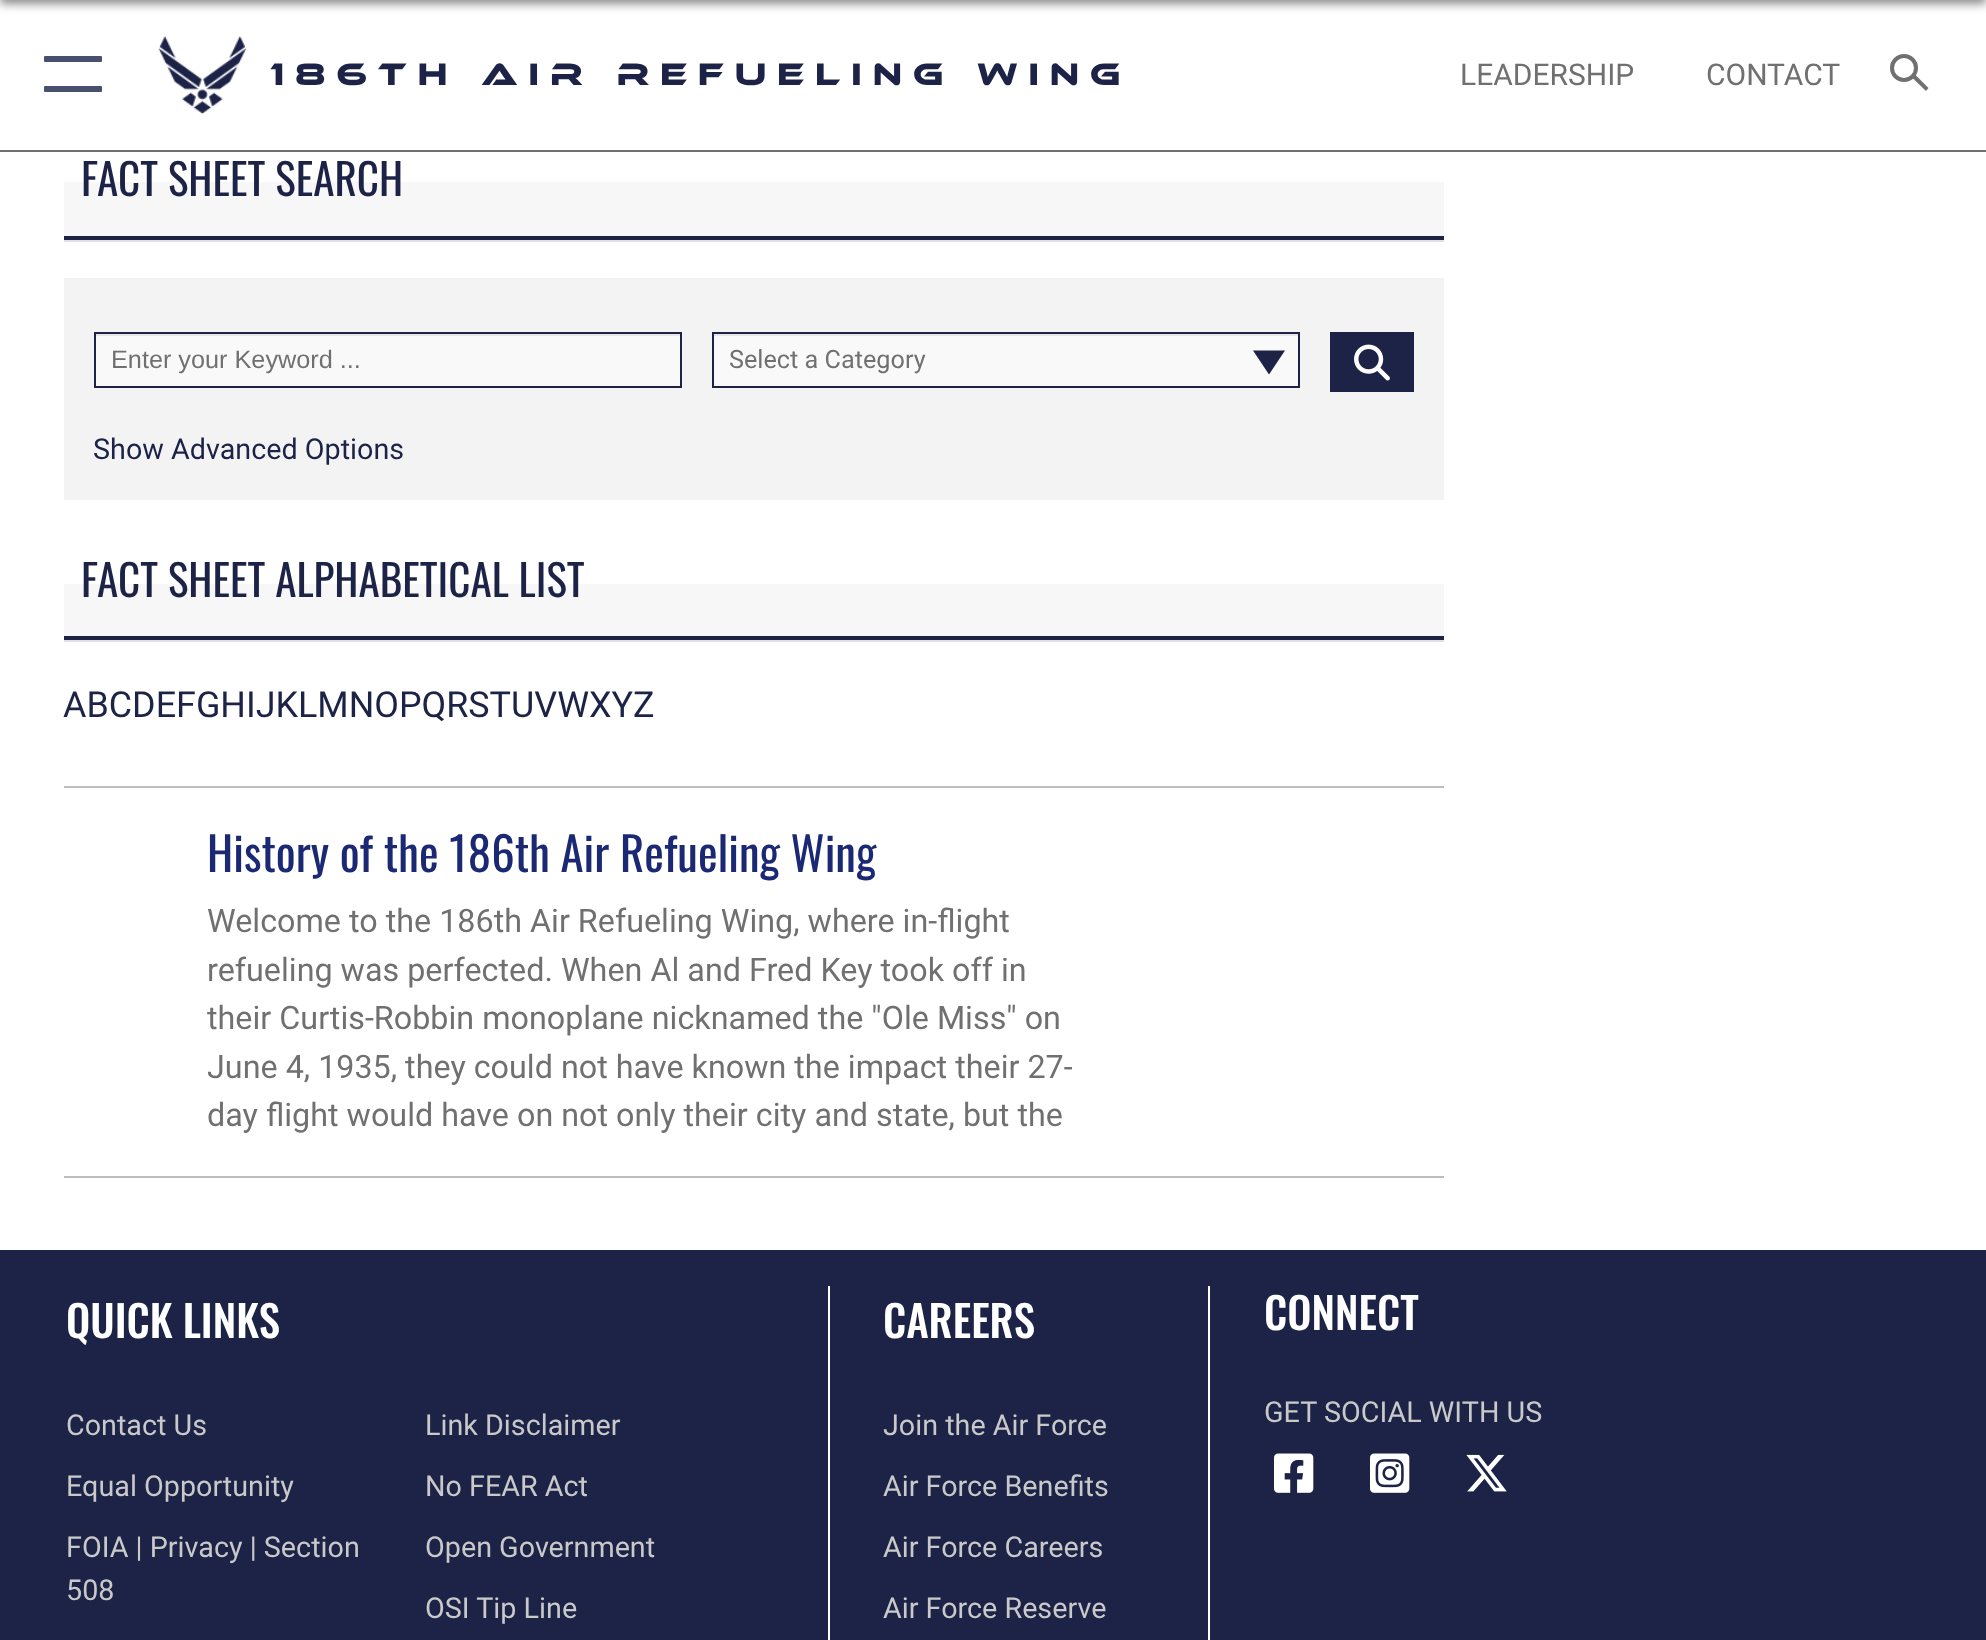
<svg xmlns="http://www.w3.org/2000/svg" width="1986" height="1640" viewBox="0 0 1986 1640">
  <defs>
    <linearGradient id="g1" gradientUnits="userSpaceOnUse" x1="754" y1="152" x2="754" y2="240"><stop offset="0" stop-color="#fff"/><stop offset="0.34" stop-color="#fff"/><stop offset="0.34" stop-color="#f7f7f7"/><stop offset="1" stop-color="#f7f7f7"/></linearGradient>
    <linearGradient id="g2" gradientUnits="userSpaceOnUse" x1="754" y1="554" x2="754" y2="640"><stop offset="0" stop-color="#fff"/><stop offset="0.35" stop-color="#fff"/><stop offset="0.35" stop-color="#f7f7f7"/><stop offset="1" stop-color="#f7f7f7"/></linearGradient>
  </defs>
  <rect width="100%" height="100%" fill="#fff"/>
  <path d="M0 -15h1986v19H0z" fill="#1a1a1a80" filter="blur(5px)"/>
  <path d="M0 150h1986v2H0z" fill="#707070"/>
  <rect x="44" y="56" width="58" height="6" rx="1" fill="#49506d"/>
  <rect x="44" y="86" width="58" height="6" rx="1" fill="#49506d"/>
  <image x="158" y="36" width="89" height="79" href="img/1.png"/>
  <circle cx="1904" cy="68" r="12" fill="none" stroke="#707070" stroke-width="4"/>
  <path d="M1914.5 74L1928.5 88L1926 91L1911.5 77Z" fill="#707070"/>
  <path d="M64 182h1380v54H64z" fill="url(#g1)"/>
  <path d="M64 240h1380v2H64z" fill="#dee2e6"/>
  <path d="M64 236h1380v4H64z" fill="#1c2347"/>
  <path d="M64 278h1380v222H64z" fill="#f3f3f3"/>
  <path d="M96 336h584v50H96z" fill="#f9f9f9"/>
  <path d="M96 334h584v2H96z" fill="#e6e6e6"/>
  <path d="M95 333h586v54H95z" fill="none" stroke="#1c2347" stroke-width="2"/>
  <path d="M714 336h584v50H714z" fill="#f9f9f9"/>
  <path d="M714 334h584v2H714z" fill="#e6e6e6"/>
  <path d="M713 333h586v54H713z" fill="none" stroke="#1c2347" stroke-width="2"/>
  <path d="M1253 350.5H1285L1269 374.5Z" fill="#1c2347"/>
  <path d="M1330 332h84v60H1330z" fill="#1c2347"/>
  <image x="1354" y="344" width="36" height="37" href="img/2.png"/>
  <path d="M64 584h1380v52H64z" fill="url(#g2)"/>
  <path d="M64 640h1380v2H64z" fill="#dee2e6"/>
  <path d="M64 636h1380v4H64z" fill="#1c2347"/>
  <path d="M64 786h1380v2H64z" fill="#c1bdbd"/>
  <path d="M64 1176h1380v2H64z" fill="#c1bdbd"/>
  <path d="M0 1250h1986v390H0z" fill="#1c2347"/>
  <path d="M1208 1286h2v354H1208z" fill="#fff"/>
  <path d="M828 1286h2v354H828z" fill="#fff"/>
  <image x="1274" y="1453" width="40" height="40" href="img/3.png"/>
  <image x="1370" y="1453" width="40" height="40" href="img/4.png"/>
  <image x="1466" y="1454" width="41" height="38" href="img/5.png"/>
  <text x="270" y="85" font-family="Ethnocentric" font-size="32" letter-spacing="10.75" fill="#1c2347">186th Air Refueling Wing</text>
  <g font-family="Roboto" font-size="30" fill="#707070">
    <text x="1460" y="85">LEADERSHIP</text>
    <text x="1706" y="85">CONTACT</text>
  </g>
  <text x="81" y="196" font-family="Oswald" font-size="43.1" fill="#1c2347">FACT SHEET SEARCH</text>
  <text x="111" y="368" font-family="Liberation Sans" font-size="25.25" fill="#707070">Enter your Keyword ...</text>
  <text x="729" y="368" font-family="Roboto" font-size="25.25" fill="#707070">Select a Category</text>
  <text x="93" y="459" font-family="Roboto" font-size="28.75" fill="#1c2347">Show Advanced Options</text>
  <text x="81" y="597" font-family="Oswald" font-size="43.1" fill="#1c2347">FACT SHEET ALPHABETICAL LIST</text>
  <text x="63" y="717" font-family="Roboto" font-size="35.9" fill="#1c2347">ABCDEFGHIJKLMNOPQRSTUVWXYZ</text>
  <text x="207" y="872" font-family="Oswald" font-size="46.75" fill="#1b2974">History of the 186th Air Refueling Wing</text>
  <g font-family="Roboto" font-size="32.35" fill="#707070">
    <text x="207" y="932">Welcome to the 186th Air Refueling Wing, where in-flight</text>
    <text x="207" y="981">refueling was perfected. When Al and Fred Key took off in</text>
    <text x="207" y="1029">their Curtis-Robbin monoplane nicknamed the "Ole Miss" on</text>
    <text x="207" y="1078">June 4, 1935, they could not have known the impact their 27-</text>
    <text x="207" y="1126">day flight would have on not only their city and state, but the</text>
  </g>
  <text x="66" y="1338" font-family="Oswald" font-size="43.1" font-weight="500" fill="#fff">QUICK LINKS</text>
  <g font-family="Roboto" font-size="28.75" fill="#c9c9c9">
    <text x="66" y="1435">Contact Us</text>
    <text x="425" y="1435">Link Disclaimer</text>
    <text x="66" y="1496">Equal Opportunity</text>
    <text x="425" y="1496">No FEAR Act</text>
    <text x="66" y="1557">FOIA | Privacy | Section</text>
    <text x="66" y="1600">508</text>
    <text x="425" y="1557">Open Government</text>
    <text x="425" y="1618">OSI Tip Line</text>
  </g>
  <text x="883" y="1338" font-family="Oswald" font-size="43.1" font-weight="500" fill="#fff">CAREERS</text>
  <g font-family="Roboto" font-size="28.75" fill="#c9c9c9">
    <text x="883" y="1435">Join the Air Force</text>
    <text x="883" y="1496">Air Force Benefits</text>
    <text x="883" y="1557">Air Force Careers</text>
    <text x="883" y="1618">Air Force Reserve</text>
  </g>
  <text x="1264" y="1330" font-family="Oswald" font-size="43.1" font-weight="500" fill="#fff">CONNECT</text>
  <text x="1264" y="1422" font-family="Roboto" font-size="28.75" fill="#c9c9c9">GET SOCIAL WITH US</text>
</svg>
